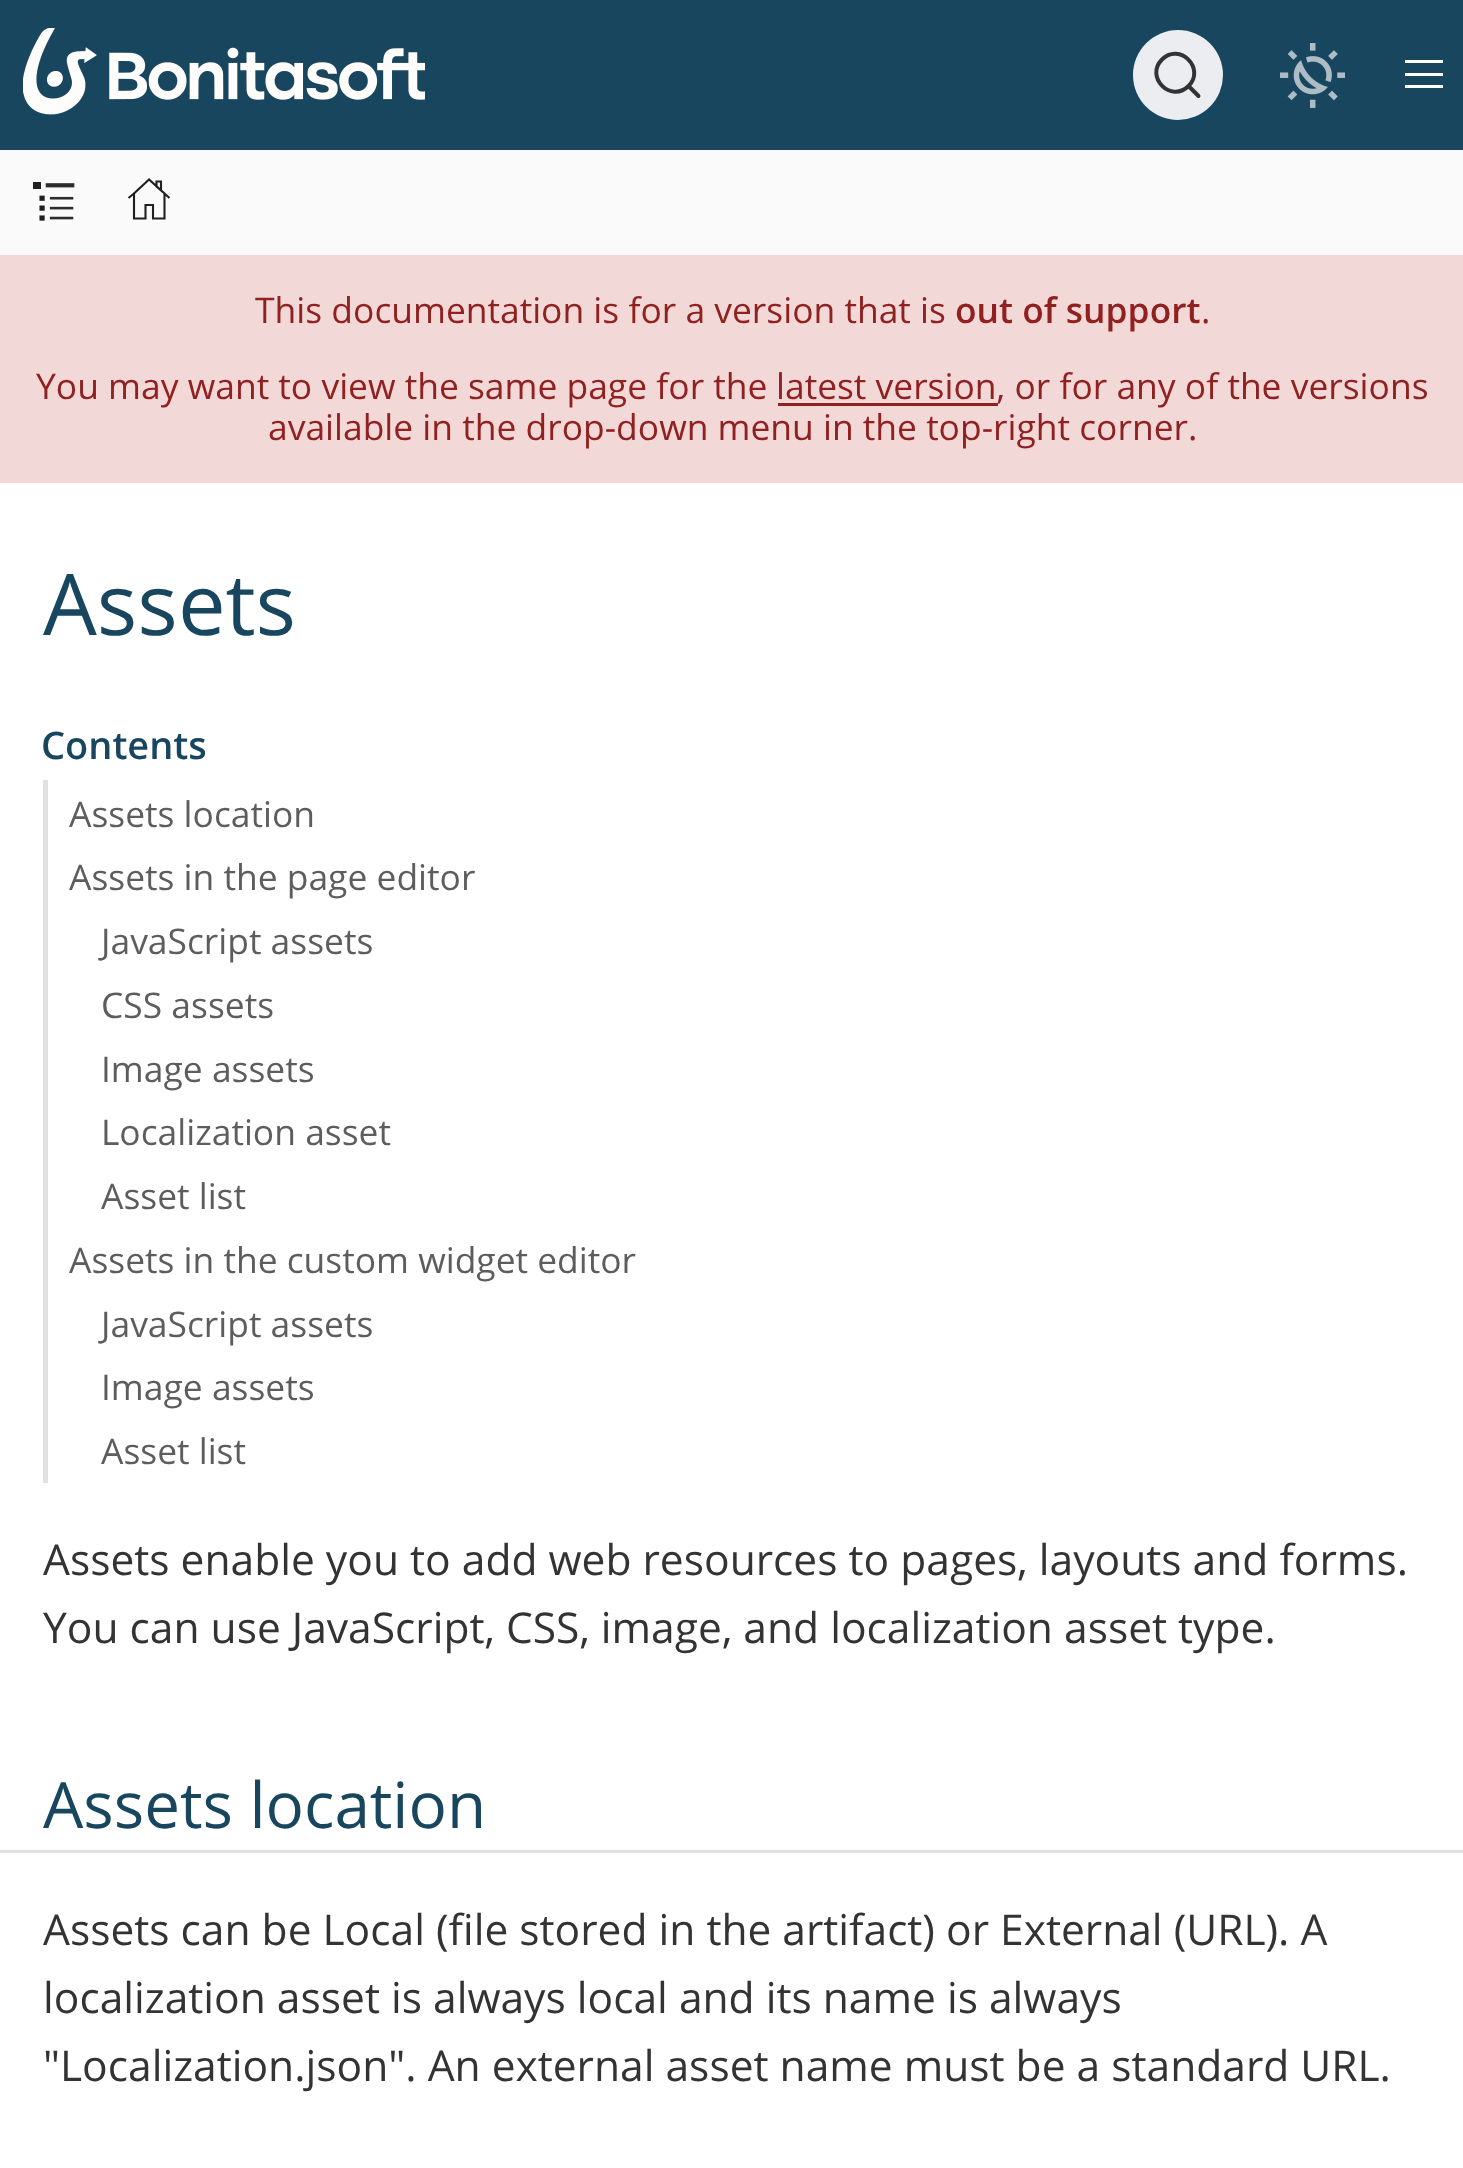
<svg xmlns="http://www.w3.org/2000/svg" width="1463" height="2168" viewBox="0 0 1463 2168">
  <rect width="100%" height="100%" fill="#fff"/>
  <path d="M0 0h1463v150H0z" fill="#19465f"/>
  <image x="23" y="28" width="402" height="87" href="img/1.png"/>
  <circle cx="1178" cy="75" r="45" fill="#ebedf0"/>
  <path d="M1188.5 86L1198.5 96L1188.5 86C1171 103.5 1144.5 77 1162 59.5C1179.5 42 1206 68.5 1188.5 86Z" fill="none" stroke="#333" stroke-width="4" stroke-linecap="round" stroke-linejoin="round"/>
  <image x="1280" y="43" width="65" height="65" href="img/2.png"/>
  <path d="M1405 60h38v3H1405z" fill="#fff"/>
  <path d="M1405 73h38v3H1405z" fill="#fff"/>
  <path d="M1405 85h38v3H1405z" fill="#fff"/>
  <path d="M0 150h1463v105H0z" fill="#fafafa"/>
  <image x="33" y="182" width="42" height="39" href="img/3.png"/>
  <path d="M149 179.5L134 193.5V218.5H145.5V205H153V218.5H164.5V193.5ZM156.5 186.5V181.5H161V190.5ZM134 193.5L128.5 198M169.5 198L164.5 193.5" fill="none" stroke="#202020" stroke-width="2.1"/>
  <path d="M0 255h1463v228H0z" fill="#f3d8d8"/>
  <path d="M778 403h220v3H778z" fill="#912020"/>
  <path d="M43 780h5v703H43z" fill="#e1e1e1"/>
  <path d="M0 1850h1463v3H0z" fill="#e1e1e1"/>
  <text x="255" y="323" font-family="Open Sans" font-size="35.4" fill="#912020">This documentation is for a version that is</text>
  <text x="955" y="323" font-family="Open Sans" font-size="35.4" font-weight="600" fill="#912020">out of support</text>
  <g font-family="Open Sans" font-size="35.4" fill="#912020">
    <text x="1201" y="323">.</text>
    <text x="36" y="399">You may want to view the same page for the</text>
    <text x="776" y="399">latest version, or for any of the versions</text>
    <text x="268" y="440">available in the drop-down menu in the top-right corner.</text>
  </g>
  <text x="43" y="635" font-family="Open Sans" font-size="85" fill="#19465f">Assets</text>
  <text x="41" y="759" font-family="Open Sans" font-size="38" font-weight="600" fill="#19465f">Contents</text>
  <g font-family="Open Sans" font-size="35.4" fill="#5d5d5d">
    <text x="69" y="827">Assets location</text>
    <text x="69" y="890">Assets in the page editor</text>
    <text x="101" y="954">JavaScript assets</text>
    <text x="101" y="1018">CSS assets</text>
    <text x="101" y="1082">Image assets</text>
    <text x="101" y="1145">Localization asset</text>
    <text x="101" y="1209">Asset list</text>
    <text x="69" y="1273">Assets in the custom widget editor</text>
    <text x="101" y="1337">JavaScript assets</text>
    <text x="101" y="1400">Image assets</text>
    <text x="101" y="1464">Asset list</text>
  </g>
  <g font-family="Open Sans" font-size="42.5" fill="#333">
    <text x="43" y="1575">Assets enable you to add web resources to pages, layouts and forms.</text>
    <text x="43" y="1643">You can use JavaScript, CSS, image, and localization asset type.</text>
  </g>
  <text x="43" y="1828" font-family="Open Sans" font-size="63.75" fill="#19465f">Assets location</text>
  <g font-family="Open Sans" font-size="42.5" fill="#333">
    <text x="43" y="1945">Assets can be Local (file stored in the artifact) or External (URL). A</text>
    <text x="43" y="2013">localization asset is always local and its name is always</text>
    <text x="43" y="2081">"Localization.json". An external asset name must be a standard URL.</text>
  </g>
</svg>
